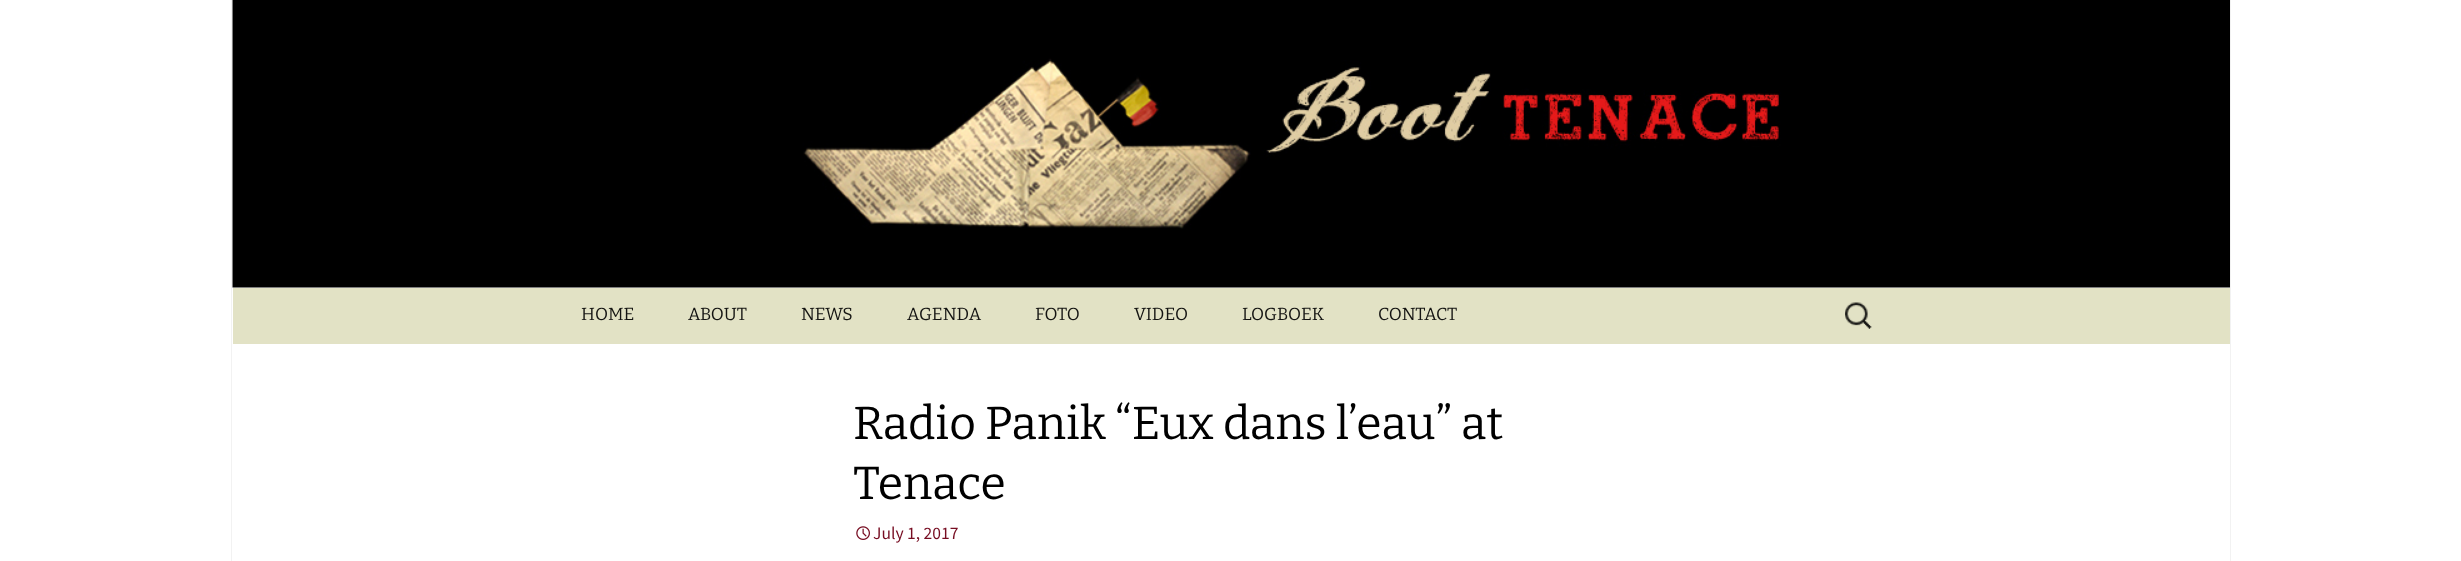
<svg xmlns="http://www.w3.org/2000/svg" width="2461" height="561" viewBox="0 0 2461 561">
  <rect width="100%" height="100%" fill="#fff"/>
  <path d="M2230 0h1v561H2230z" fill="#f2f2f2"/>
  <path d="M231 0h1v561H231z" fill="#f2f2f2"/>
  <image x="232" y="0" width="1998" height="288" href="img/1.png"/>
  <path d="M233 288h1997v56H233z" fill="#e2e2c5"/>
  <image x="1845" y="302" width="27" height="27" href="img/2.png"/>
  <image x="856" y="526" width="14" height="14" href="img/3.png"/>
  <g font-family="Bitter" font-size="17.5" fill="#141412">
    <text x="581" y="320">HOME</text>
    <text x="688" y="320">ABOUT</text>
    <text x="801" y="320">NEWS</text>
    <text x="907" y="320">AGENDA</text>
    <text x="1035" y="320">FOTO</text>
    <text x="1134" y="320">VIDEO</text>
    <text x="1242" y="320">LOGBOEK</text>
    <text x="1378" y="320">CONTACT</text>
  </g>
  <g font-family="Bitter" font-size="46.25" fill="#000">
    <text x="853" y="439">Radio Panik “Eux dans l’eau” at</text>
    <text x="853" y="499">Tenace</text>
  </g>
  <text x="873" y="539" font-family="Source Sans Pro" font-size="17.5" fill="#770d22">July 1, 2017</text>
</svg>
